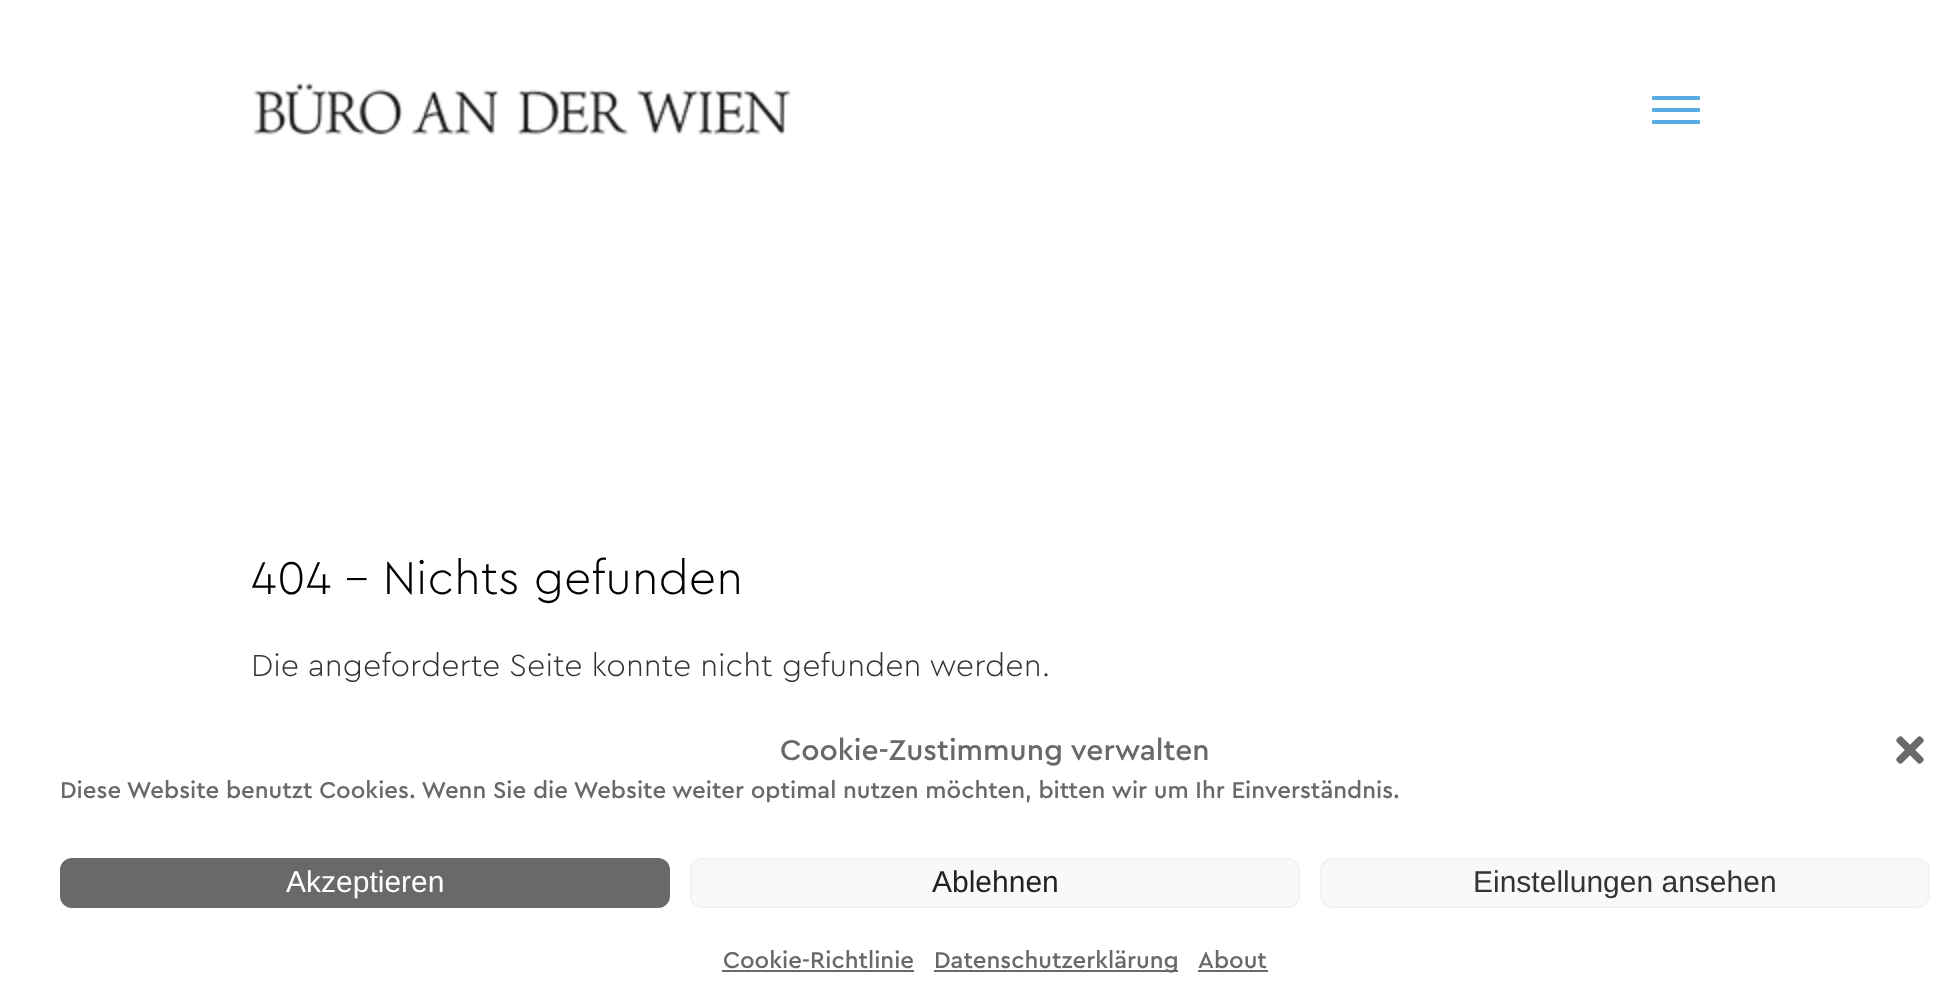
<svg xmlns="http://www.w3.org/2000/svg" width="1950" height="988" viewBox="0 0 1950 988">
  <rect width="100%" height="100%" fill="#fff"/>
  <image x="253" y="83" width="538" height="52" href="img/1.png"/>
  <path d="M1652 108h48v4H1652z" fill="#5aaae8"/>
  <path d="M1652 96h48v4H1652z" fill="#5aaae8"/>
  <path d="M1652 120h48v4H1652z" fill="#5aaae8"/>
  <image x="1896" y="736" width="28" height="28" href="img/2.png"/>
  <rect x="61" y="859" width="608" height="48" rx="11" fill="#696969" stroke="#696969" stroke-width="2"/>
  <rect x="691" y="859" width="608" height="48" rx="11" fill="#f9f9f9" stroke="#f2f2f2" stroke-width="2"/>
  <rect x="1321" y="859" width="608" height="48" rx="11" fill="#f9f9f9" stroke="#f2f2f2" stroke-width="2"/>
  <path d="M722 970h192v2H722z" fill="#696969"/>
  <path d="M934 970h244v2H934z" fill="#696969"/>
  <path d="M1198 970h70v2H1198z" fill="#696969"/>
  <text x="251" y="594" font-family="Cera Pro" font-size="48" font-weight="300" fill="#000">404 - Nichts gefunden</text>
  <text x="251" y="676" font-family="Cera Pro" font-size="32" font-weight="300" fill="#333">Die angeforderte Seite konnte nicht gefunden werden.</text>
  <text x="780" y="760" font-family="Cera Pro" font-size="30" font-weight="500" fill="#696969">Cookie-Zustimmung verwalten</text>
  <text x="60" y="798" font-family="Cera Pro" font-size="24" font-weight="500" fill="#696969">Diese Website benutzt Cookies. Wenn Sie die Website weiter optimal nutzen möchten, bitten wir um Ihr Einverständnis.</text>
  <text x="286" y="892" font-family="Liberation Sans" font-size="30" fill="#fff">Akzeptieren</text>
  <text x="932" y="892" font-family="Liberation Sans" font-size="30" fill="#222">Ablehnen</text>
  <text x="1473" y="892" font-family="Liberation Sans" font-size="30" fill="#333">Einstellungen ansehen</text>
  <g font-family="Cera Pro" font-size="24" font-weight="500" fill="#696969">
    <text x="723" y="968">Cookie-Richtlinie</text>
    <text x="934" y="968">Datenschutzerklärung</text>
    <text x="1198" y="968">About</text>
  </g>
</svg>
